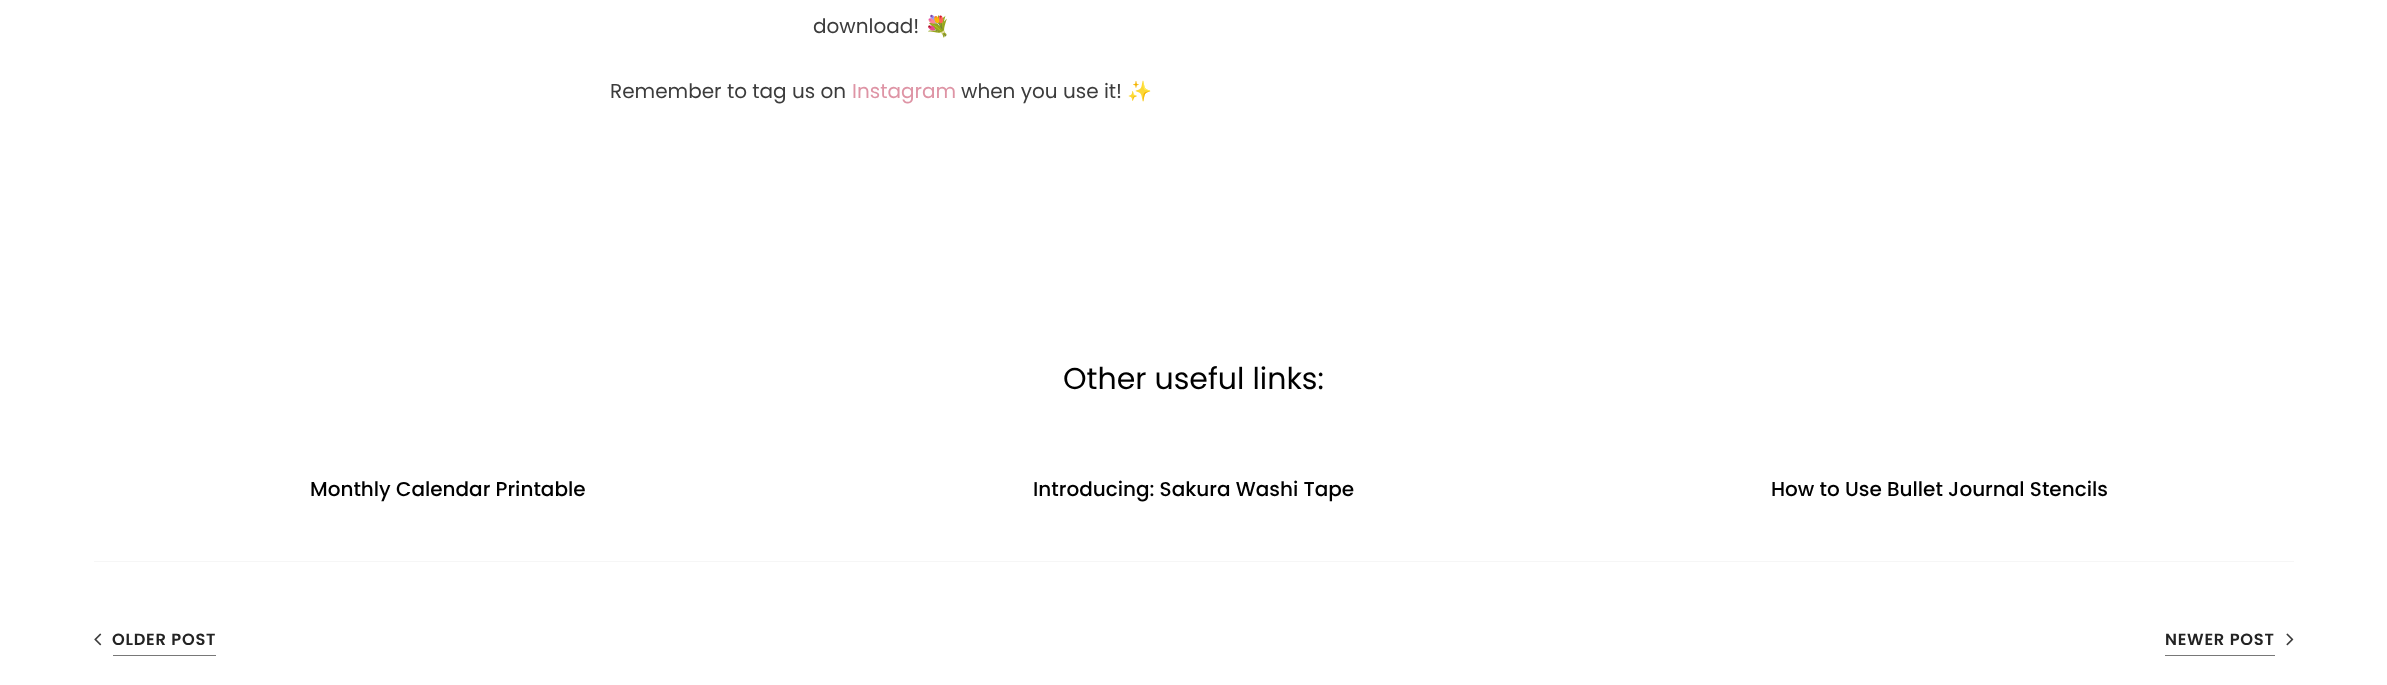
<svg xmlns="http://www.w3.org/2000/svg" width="2387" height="685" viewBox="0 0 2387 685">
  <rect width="100%" height="100%" fill="#fff"/>
  <path d="M94 561h2200v1H94z" fill="#f6f6f6"/>
  <image x="94" y="633" width="8" height="13" href="img/1.png"/>
  <path d="M113 655h103v1H113z" fill="#787878"/>
  <path d="M2165 655h110v1H2165z" fill="#787878"/>
  <image x="2286" y="633" width="8" height="13" href="img/2.png"/>
  <text x="813" y="33" font-family="Poppins" font-size="20" fill="#3c3c3c">download!</text>
  <text x="925" y="33" font-family="Noto Color Emoji" font-size="20" fill="#3c3c3c">💐</text>
  <text x="610" y="98" font-family="Poppins" font-size="20" fill="#3c3c3c">Remember to tag us on</text>
  <text x="852" y="98" font-family="Poppins" font-size="20" fill="#de94a5">Instagram</text>
  <text x="961" y="98" font-family="Poppins" font-size="20" fill="#3c3c3c">when you use it!</text>
  <text x="1127" y="98" font-family="Noto Color Emoji" font-size="20" fill="#3c3c3c">✨</text>
  <text x="1063" y="389" font-family="Poppins" font-size="30" fill="#000">Other useful links:</text>
  <g font-family="Poppins" font-size="20" font-weight="500" fill="#000">
    <text x="310" y="496">Monthly Calendar Printable</text>
    <text x="1033" y="496">Introducing: Sakura Washi Tape</text>
    <text x="1771" y="496">How to Use Bullet Journal Stencils</text>
  </g>
  <g font-family="Poppins" font-size="16.25" font-weight="600" letter-spacing="0.75" fill="#232323">
    <text x="112" y="645">OLDER POST</text>
    <text x="2165" y="645">NEWER POST</text>
  </g>
</svg>
